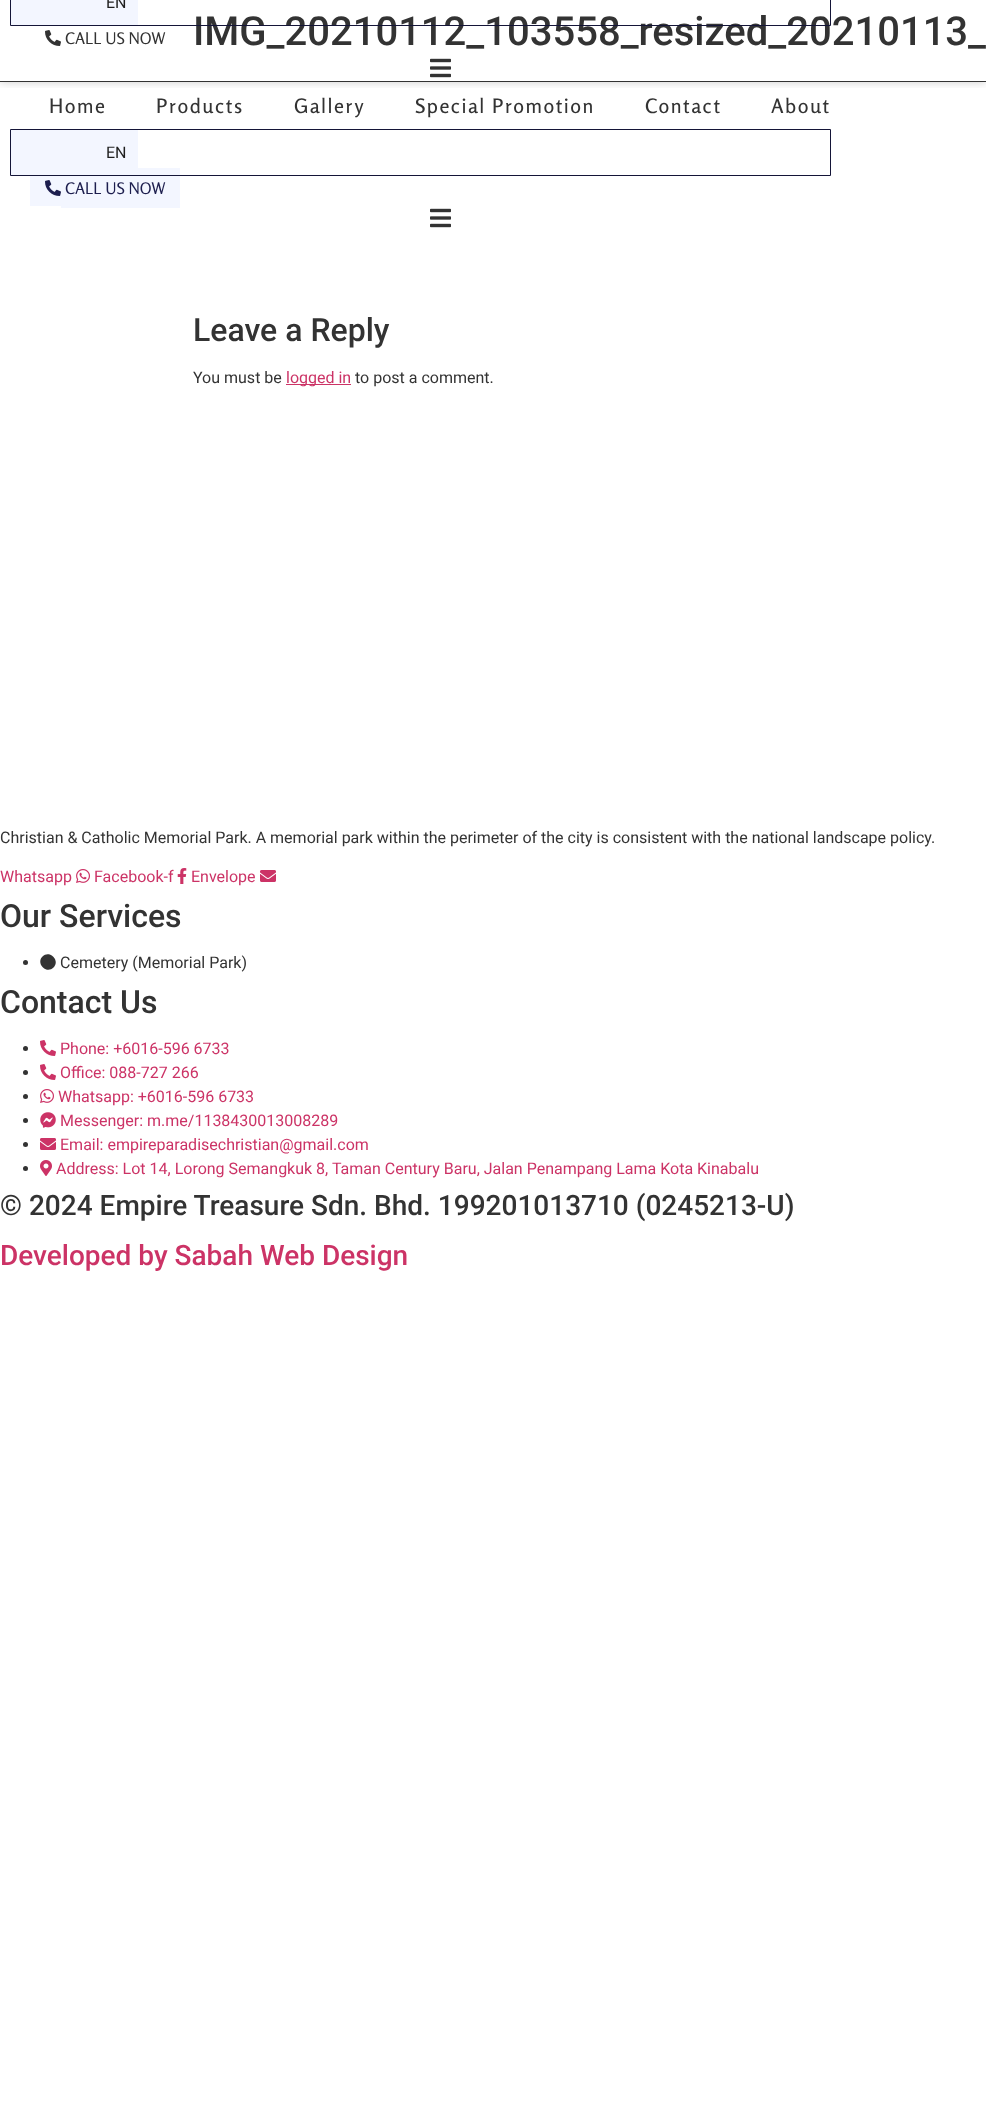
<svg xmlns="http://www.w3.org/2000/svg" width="986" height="2113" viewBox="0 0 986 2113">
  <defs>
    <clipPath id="clip1"><path d="M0 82h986v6H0z"/></clipPath>
  </defs>
  <rect width="100%" height="100%" fill="#fff"/>
  <g clip-path="url(#clip1)">
    <path d="M0 -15h986v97H0z" fill="#00000033" filter="blur(5px)"/>
  </g>
  <path d="M0 81h986v1H0z" fill="#333"/>
  <image x="45" y="30" width="16" height="16" href="img/1.png"/>
  <image x="430" y="58" width="21" height="20" href="img/2.png"/>
  <path d="M61 168h119v40H61z" fill="#f3f6ff"/>
  <path d="M10.5 129.5h820v46H10.5z" fill="none" stroke="#141538"/>
  <path d="M11 130h127v45H11z" fill="#f3f6ff"/>
  <path d="M30 176h31v30H30z" fill="#f3f6ff"/>
  <image x="45" y="180" width="16" height="16" href="img/3.png"/>
  <image x="430" y="208" width="21" height="20" href="img/2.png"/>
  <path d="M286 384h65v1H286z" fill="#c36"/>
  <image x="76" y="869" width="14" height="14" href="img/4.png"/>
  <image x="177" y="868" width="10" height="16" href="img/5.png"/>
  <image x="260" y="870" width="16" height="12" href="img/6.png"/>
  <circle cx="25.5" cy="962.5" r="2.5" fill="#333"/>
  <path d="M42.5 956.5C49.5 949.5 60.5 960.5 53.5 967.5C46.5 974.5 35.5 963.5 42.5 956.5Z" fill="#333"/>
  <circle cx="25.5" cy="1048.5" r="2.5" fill="#333"/>
  <image x="40" y="1040" width="16" height="16" href="img/7.png"/>
  <circle cx="25.5" cy="1072.5" r="2.5" fill="#333"/>
  <image x="40" y="1064" width="16" height="16" href="img/7.png"/>
  <circle cx="25.5" cy="1096.5" r="2.5" fill="#333"/>
  <image x="40" y="1089" width="14" height="14" href="img/4.png"/>
  <circle cx="25.5" cy="1120.5" r="2.5" fill="#333"/>
  <image x="40" y="1112" width="16" height="16" href="img/8.png"/>
  <circle cx="25.5" cy="1144.5" r="2.5" fill="#333"/>
  <image x="40" y="1138" width="16" height="12" href="img/6.png"/>
  <circle cx="25.5" cy="1168.5" r="2.5" fill="#333"/>
  <image x="40" y="1160" width="12" height="16" href="img/9.png"/>
  <text x="65" y="44" font-family="Rosario" font-size="16" fill="#333">CALL US NOW</text>
  <g font-family="Rosario" font-size="20" font-weight="500" letter-spacing="1.5" fill="#333">
    <text x="49" y="113">Home</text>
    <text x="156" y="113">Products</text>
    <text x="294" y="113">Gallery</text>
    <text x="415" y="113">Special Promotion</text>
    <text x="645" y="113">Contact</text>
    <text x="771" y="113">About</text>
  </g>
  <text x="106" y="158" font-family="Roboto" font-size="16" fill="#1e1e1e">EN</text>
  <text x="65" y="194" font-family="Rosario" font-size="16" fill="#1d1e4e">CALL US NOW</text>
  <text x="193" y="45" font-family="Roboto" font-size="40" font-weight="500" fill="#333">IMG_20210112_103558_resized_20210113_</text>
  <path d="M10.5 -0.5h820v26H10.5z" fill="none" stroke="#141538"/>
  <path d="M11 0h127v25H11z" fill="#f3f6ff"/>
  <text x="106" y="8" font-family="Roboto" font-size="16" fill="#1e1e1e">EN</text>
  <text x="193" y="341" font-family="Roboto" font-size="32" font-weight="500" fill="#333">Leave a Reply</text>
  <text x="193" y="383" font-family="Roboto" font-size="16" fill="#333">You must be</text>
  <text x="286" y="383" font-family="Roboto" font-size="16" fill="#c36">logged in</text>
  <g font-family="Roboto" font-size="16" fill="#333">
    <text x="355" y="383">to post a comment.</text>
    <text x="0" y="843">Christian &amp; Catholic Memorial Park. A memorial park within the perimeter of the city is consistent with the national landscape policy.</text>
  </g>
  <g font-family="Roboto" font-size="16" fill="#c36">
    <text x="0" y="882">Whatsapp</text>
    <text x="94" y="882">Facebook-f</text>
    <text x="191" y="882">Envelope</text>
  </g>
  <text x="0" y="927" font-family="Roboto" font-size="32" font-weight="500" fill="#333">Our Services</text>
  <text x="60" y="968" font-family="Roboto" font-size="16" fill="#333">Cemetery (Memorial Park)</text>
  <text x="0" y="1013" font-family="Roboto" font-size="32" font-weight="500" fill="#333">Contact Us</text>
  <g font-family="Roboto" font-size="16" fill="#c36">
    <text x="60" y="1054">Phone: +6016-596 6733</text>
    <text x="60" y="1078">Office: 088-727 266</text>
    <text x="58" y="1102">Whatsapp: +6016-596 6733</text>
    <text x="60" y="1126">Messenger: m.me/1138430013008289</text>
    <text x="60" y="1150">Email: empireparadisechristian@gmail.com</text>
    <text x="56" y="1174">Address: Lot 14, Lorong Semangkuk 8, Taman Century Baru, Jalan Penampang Lama Kota Kinabalu</text>
  </g>
  <text x="0" y="1215" font-family="Roboto" font-size="28" font-weight="500" fill="#333">© 2024 Empire Treasure Sdn. Bhd. 199201013710 (0245213-U)</text>
  <text x="0" y="1265" font-family="Roboto" font-size="28" font-weight="500" fill="#c36">Developed by Sabah Web Design</text>
</svg>
